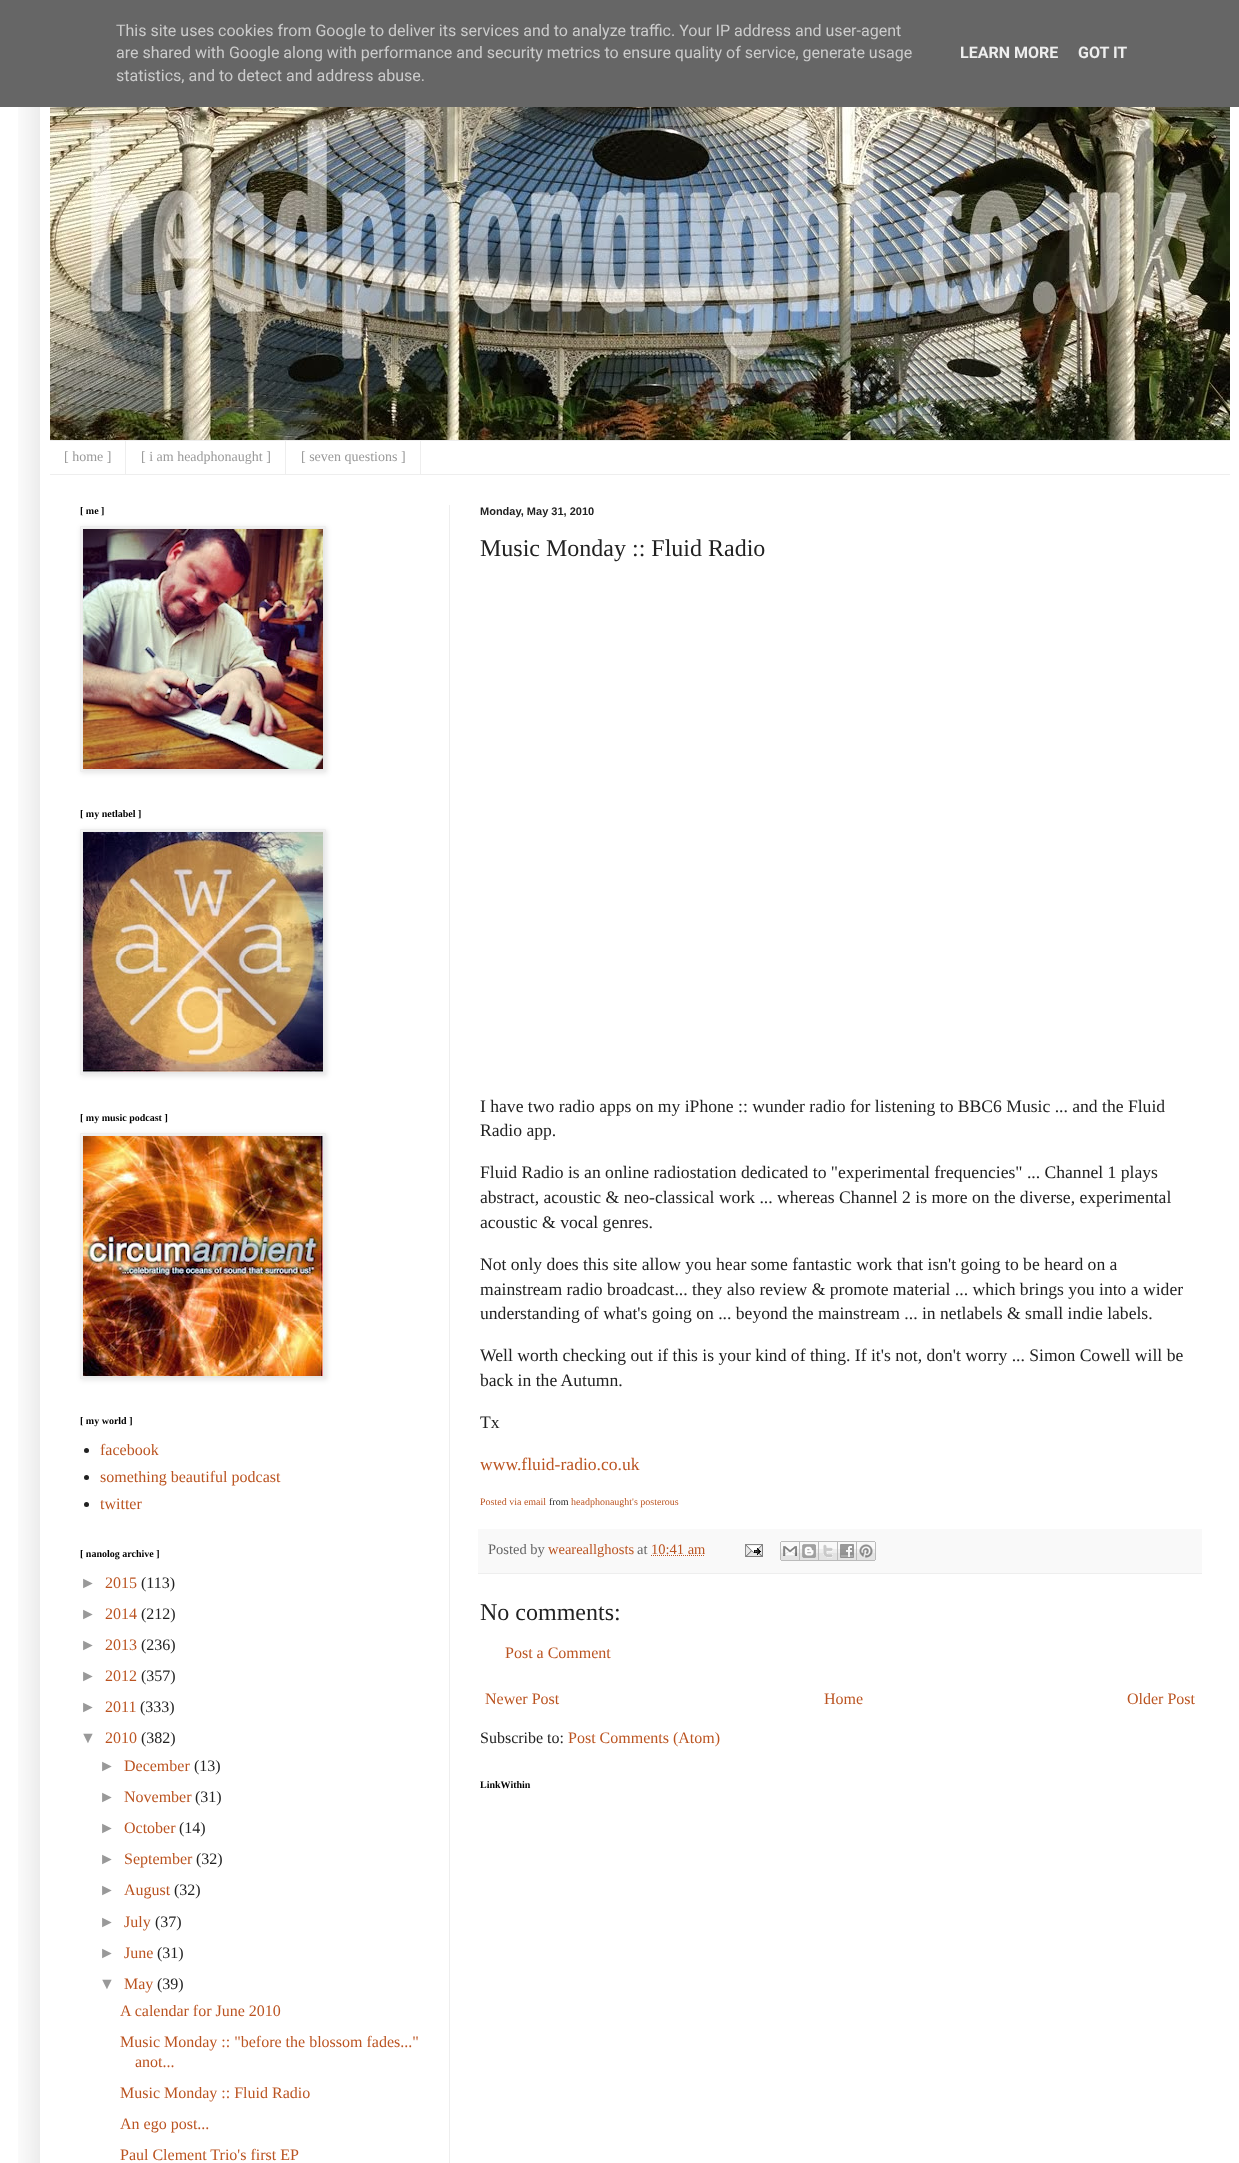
<svg xmlns="http://www.w3.org/2000/svg" width="1239" height="2163" viewBox="0 0 1239 2163">
  <defs>
    <clipPath id="clip1"><path d="M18 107h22v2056H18z"/></clipPath>
  </defs>
  <rect width="100%" height="100%" fill="#fff"/>
  <g clip-path="url(#clip1)">
    <path d="M40 30h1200v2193H40z" fill="#00000026" filter="blur(20px)"/>
  </g>
  <path d="M0 0h1239v107H0z" fill="#666"/>
  <image x="50" y="107" width="1180" height="333" href="img/1.png"/>
  <path d="M50 440h1180v1H50z" fill="#eee"/>
  <path d="M50 474h1180v1H50z" fill="#eee"/>
  <path d="M125 441h1v33H125z" fill="#eee"/>
  <path d="M285 441h1v33H285z" fill="#eee"/>
  <path d="M420 441h1v33H420z" fill="#eee"/>
  <path d="M449 505h1v1658H449z" fill="#eee"/>
  <path d="M81 527h246v246H81z" fill="#0000001a" filter="blur(2.5px)"/>
  <path d="M80.5 526.5h245v245H80.5z" fill="none" stroke="#eee"/>
  <image x="83" y="529" width="240" height="240" href="img/2.png"/>
  <path d="M81 830h246v246H81z" fill="#0000001a" filter="blur(2.5px)"/>
  <path d="M80.5 829.5h245v245H80.5z" fill="none" stroke="#eee"/>
  <image x="83" y="832" width="240" height="240" href="img/3.png"/>
  <path d="M81 1134h246v246H81z" fill="#0000001a" filter="blur(2.5px)"/>
  <path d="M80.5 1133.5h245v245H80.5z" fill="none" stroke="#eee"/>
  <image x="83" y="1136" width="240" height="240" href="img/4.png"/>
  <circle cx="86.5" cy="1450.5" r="2.5" fill="#222"/>
  <circle cx="86.5" cy="1477.5" r="2.5" fill="#222"/>
  <circle cx="86.5" cy="1504.5" r="2.5" fill="#222"/>
  <path d="M478 1529h724v44H478z" fill="#f9f9f9"/>
  <path d="M478 1573h724v1H478z" fill="#eee"/>
  <path d="M651 1555.5H705" fill="none" stroke="#bb5421" stroke-dasharray="1 1"/>
  <image x="745" y="1544" width="18" height="13" href="img/5.png"/>
  <image x="780" y="1541" width="20" height="20" href="img/6.png"/>
  <image x="800" y="1541" width="19" height="20" href="img/7.png"/>
  <image x="819" y="1541" width="19" height="20" href="img/8.png"/>
  <image x="838" y="1541" width="19" height="20" href="img/9.png"/>
  <image x="857" y="1541" width="19" height="20" href="img/10.png"/>
  <g font-family="Roboto" font-size="16" fill="#ccc">
    <text x="116" y="36">This site uses cookies from Google to deliver its services and to analyze traffic. Your IP address and user-agent</text>
    <text x="116" y="58">are shared with Google along with performance and security metrics to ensure quality of service, generate usage</text>
    <text x="116" y="81">statistics, and to detect and address abuse.</text>
  </g>
  <g font-family="Roboto" font-size="16" font-weight="bold" fill="#eee">
    <text x="960" y="58">LEARN MORE</text>
    <text x="1078" y="58">GOT IT</text>
  </g>
  <g font-family="Liberation Serif" font-size="14" fill="#999">
    <text x="64" y="461">[ home ]</text>
    <text x="141" y="461">[ i am headphonaught ]</text>
    <text x="301" y="461">[ seven questions ]</text>
  </g>
  <g font-family="Liberation Serif" font-size="10" font-weight="bold" fill="#000">
    <text x="80" y="514">[ me ]</text>
    <text x="80" y="817">[ my netlabel ]</text>
    <text x="80" y="1121">[ my music podcast ]</text>
    <text x="80" y="1424">[ my world ]</text>
  </g>
  <g font-family="Liberation Serif" font-size="16" fill="#bb5421">
    <text x="100" y="1455">facebook</text>
    <text x="100" y="1482">something beautiful podcast</text>
    <text x="100" y="1509">twitter</text>
  </g>
  <text x="80" y="1557" font-family="Liberation Serif" font-size="10" font-weight="bold" fill="#000">[ nanolog archive ]</text>
  <text x="80" y="1588" font-family="Liberation Sans" font-size="16" fill="#999">►</text>
  <text x="105" y="1588" font-family="Liberation Serif" font-size="16" fill="#bb5421">2015</text>
  <text x="141" y="1588" font-family="Liberation Serif" font-size="16" fill="#222">(113)</text>
  <text x="80" y="1619" font-family="Liberation Sans" font-size="16" fill="#999">►</text>
  <text x="105" y="1619" font-family="Liberation Serif" font-size="16" fill="#bb5421">2014</text>
  <text x="141" y="1619" font-family="Liberation Serif" font-size="16" fill="#222">(212)</text>
  <text x="80" y="1650" font-family="Liberation Sans" font-size="16" fill="#999">►</text>
  <text x="105" y="1650" font-family="Liberation Serif" font-size="16" fill="#bb5421">2013</text>
  <text x="141" y="1650" font-family="Liberation Serif" font-size="16" fill="#222">(236)</text>
  <text x="80" y="1681" font-family="Liberation Sans" font-size="16" fill="#999">►</text>
  <text x="105" y="1681" font-family="Liberation Serif" font-size="16" fill="#bb5421">2012</text>
  <text x="141" y="1681" font-family="Liberation Serif" font-size="16" fill="#222">(357)</text>
  <text x="80" y="1712" font-family="Liberation Sans" font-size="16" fill="#999">►</text>
  <text x="105" y="1712" font-family="Liberation Serif" font-size="16" fill="#bb5421">2011</text>
  <text x="140" y="1712" font-family="Liberation Serif" font-size="16" fill="#222">(333)</text>
  <text x="80" y="1743" font-family="Liberation Sans" font-size="16" fill="#999">▼</text>
  <text x="105" y="1743" font-family="Liberation Serif" font-size="16" fill="#bb5421">2010</text>
  <text x="141" y="1743" font-family="Liberation Serif" font-size="16" fill="#222">(382)</text>
  <text x="99" y="1771" font-family="Liberation Sans" font-size="16" fill="#999">►</text>
  <text x="124" y="1771" font-family="Liberation Serif" font-size="16" fill="#bb5421">December</text>
  <text x="194" y="1771" font-family="Liberation Serif" font-size="16" fill="#222">(13)</text>
  <text x="99" y="1802" font-family="Liberation Sans" font-size="16" fill="#999">►</text>
  <text x="124" y="1802" font-family="Liberation Serif" font-size="16" fill="#bb5421">November</text>
  <text x="195" y="1802" font-family="Liberation Serif" font-size="16" fill="#222">(31)</text>
  <text x="99" y="1833" font-family="Liberation Sans" font-size="16" fill="#999">►</text>
  <text x="124" y="1833" font-family="Liberation Serif" font-size="16" fill="#bb5421">October</text>
  <text x="179" y="1833" font-family="Liberation Serif" font-size="16" fill="#222">(14)</text>
  <text x="99" y="1864" font-family="Liberation Sans" font-size="16" fill="#999">►</text>
  <text x="124" y="1864" font-family="Liberation Serif" font-size="16" fill="#bb5421">September</text>
  <text x="196" y="1864" font-family="Liberation Serif" font-size="16" fill="#222">(32)</text>
  <text x="99" y="1895" font-family="Liberation Sans" font-size="16" fill="#999">►</text>
  <text x="124" y="1895" font-family="Liberation Serif" font-size="16" fill="#bb5421">August</text>
  <text x="174" y="1895" font-family="Liberation Serif" font-size="16" fill="#222">(32)</text>
  <text x="99" y="1927" font-family="Liberation Sans" font-size="16" fill="#999">►</text>
  <text x="124" y="1927" font-family="Liberation Serif" font-size="16" fill="#bb5421">July</text>
  <text x="155" y="1927" font-family="Liberation Serif" font-size="16" fill="#222">(37)</text>
  <text x="99" y="1958" font-family="Liberation Sans" font-size="16" fill="#999">►</text>
  <text x="124" y="1958" font-family="Liberation Serif" font-size="16" fill="#bb5421">June</text>
  <text x="157" y="1958" font-family="Liberation Serif" font-size="16" fill="#222">(31)</text>
  <text x="99" y="1989" font-family="Liberation Sans" font-size="16" fill="#999">▼</text>
  <text x="124" y="1989" font-family="Liberation Serif" font-size="16" fill="#bb5421">May</text>
  <text x="157" y="1989" font-family="Liberation Serif" font-size="16" fill="#222">(39)</text>
  <g font-family="Liberation Serif" font-size="16" fill="#bb5421">
    <text x="120" y="2016">A calendar for June 2010</text>
    <text x="120" y="2047">Music Monday :: "before the blossom fades..."</text>
    <text x="135" y="2067">anot...</text>
    <text x="120" y="2098">Music Monday :: Fluid Radio</text>
    <text x="120" y="2129">An ego post...</text>
    <text x="120" y="2160">Paul Clement Trio's first EP</text>
  </g>
  <text x="480" y="515" font-family="Liberation Sans" font-size="11" font-weight="bold" fill="#222">Monday, May 31, 2010</text>
  <text x="480" y="556" font-family="Liberation Serif" font-size="24" fill="#222">Music Monday :: Fluid Radio</text>
  <g font-family="Liberation Serif" font-size="17.6" fill="#222">
    <text x="480" y="1112">I have two radio apps on my iPhone :: wunder radio for listening to BBC6 Music ... and the Fluid</text>
    <text x="480" y="1136">Radio app.</text>
    <text x="480" y="1178">Fluid Radio is an online radiostation dedicated to "experimental frequencies" ... Channel 1 plays</text>
    <text x="480" y="1203">abstract, acoustic &amp; neo-classical work ... whereas Channel 2 is more on the diverse, experimental</text>
    <text x="480" y="1228">acoustic &amp; vocal genres.</text>
    <text x="480" y="1270">Not only does this site allow you hear some fantastic work that isn't going to be heard on a</text>
    <text x="480" y="1295">mainstream radio broadcast... they also review &amp; promote material ... which brings you into a wider</text>
    <text x="480" y="1319">understanding of what's going on ... beyond the mainstream ... in netlabels &amp; small indie labels.</text>
    <text x="480" y="1361">Well worth checking out if this is your kind of thing. If it's not, don't worry ... Simon Cowell will be</text>
    <text x="480" y="1386">back in the Autumn.</text>
    <text x="480" y="1428">Tx</text>
  </g>
  <text x="480" y="1470" font-family="Liberation Serif" font-size="17.6" fill="#bb5421">www.fluid-radio.co.uk</text>
  <text x="480" y="1505" font-family="Liberation Serif" font-size="10" fill="#bb5421">Posted via email</text>
  <text x="549" y="1505" font-family="Liberation Serif" font-size="10" fill="#222">from</text>
  <text x="571" y="1505" font-family="Liberation Serif" font-size="10" fill="#bb5421">headphonaught's posterous</text>
  <text x="488" y="1554" font-family="Liberation Serif" font-size="14.5" fill="#666">Posted by</text>
  <text x="548" y="1554" font-family="Liberation Serif" font-size="14.5" fill="#bb5421">weareallghosts</text>
  <text x="637" y="1554" font-family="Liberation Serif" font-size="14.5" fill="#666">at</text>
  <text x="651" y="1554" font-family="Liberation Serif" font-size="14.5" fill="#bb5421">10:41 am</text>
  <text x="480" y="1620" font-family="Liberation Serif" font-size="24" fill="#222">No comments:</text>
  <g font-family="Liberation Serif" font-size="16" fill="#bb5421">
    <text x="505" y="1658">Post a Comment</text>
    <text x="485" y="1704">Newer Post</text>
    <text x="824" y="1704">Home</text>
    <text x="1127" y="1704">Older Post</text>
  </g>
  <text x="480" y="1743" font-family="Liberation Serif" font-size="16" fill="#222">Subscribe to:</text>
  <text x="568" y="1743" font-family="Liberation Serif" font-size="16" fill="#bb5421">Post Comments (Atom)</text>
  <text x="480" y="1788" font-family="Liberation Serif" font-size="10" font-weight="bold" fill="#000">LinkWithin</text>
</svg>
